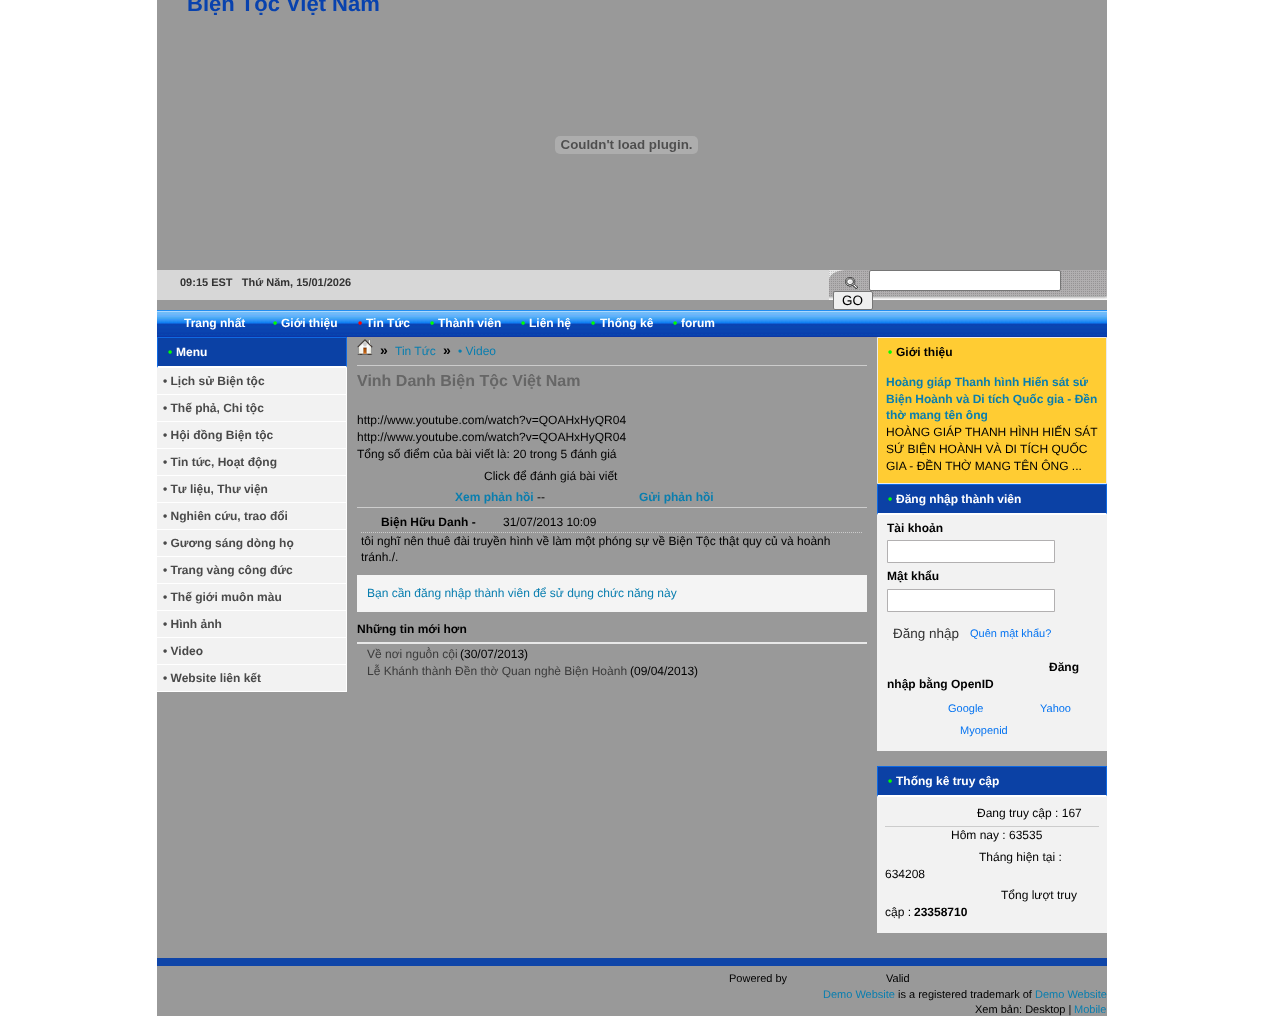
<svg xmlns="http://www.w3.org/2000/svg" width="1263" height="1016" viewBox="0 0 1263 1016">
  <rect width="100%" height="100%" fill="#fff"/>
  <path d="M157 0h950v1016H157z" fill="#999"/>
  <image x="555" y="136" width="143" height="18" href="img/1.png"/>
  <path d="M157 270h672v30H157z" fill="#d7d7d7"/>
  <image x="829" y="270" width="278" height="30" href="img/2.png"/>
  <rect x="869.5" y="270.5" width="191" height="20" rx="1.5" fill="#fff" stroke="#767676"/>
  <rect x="833.5" y="291.5" width="39" height="18" rx="1.5" fill="#efefef" stroke="#767676"/>
  <image x="157" y="310" width="950" height="27" href="img/3.png"/>
  <path d="M157 366h190v325H157z" fill="#f2f2f2"/>
  <path d="M158 338h188v28H158z" fill="#0b41a5"/>
  <path d="M157 337h190v1H157z" fill="#0f69e2"/>
  <path d="M347 337V368L346 366V338Z" fill="#0f69e2"/>
  <path d="M347 368H157L158 366H346Z" fill="#fff"/>
  <path d="M157 368V337L158 338V366Z" fill="#0f69e2"/>
  <path d="M346 368h1v162H346z" fill="#fff"/>
  <path d="M157 394h190v1H157z" fill="#fff"/>
  <path d="M157 421h190v1H157z" fill="#fff"/>
  <path d="M157 448h190v1H157z" fill="#fff"/>
  <path d="M157 475h190v1H157z" fill="#fff"/>
  <path d="M157 502h190v1H157z" fill="#fff"/>
  <path d="M157 529h190v1H157z" fill="#fff"/>
  <path d="M346 530h1v54H346z" fill="#fff"/>
  <path d="M157 556h190v1H157z" fill="#fff"/>
  <path d="M157 583h190v1H157z" fill="#fff"/>
  <path d="M346 584h1v54H346z" fill="#fff"/>
  <path d="M157 610h190v1H157z" fill="#fff"/>
  <path d="M157 637h190v1H157z" fill="#fff"/>
  <path d="M346 638h1v54H346z" fill="#fff"/>
  <path d="M157 664h190v1H157z" fill="#fff"/>
  <path d="M157 691h190v1H157z" fill="#fff"/>
  <path d="M357 365h510v1H357z" fill="#ccc"/>
  <image x="357" y="339" width="16" height="16" href="img/4.png"/>
  <path d="M357 642h510v2H357z" fill="#e8e8e8"/>
  <path d="M357 507h510v1H357z" fill="#ccc"/>
  <path d="M361 532.5H863" fill="none" stroke="#ccc" stroke-dasharray="1 1"/>
  <path d="M357 575h510v37H357z" fill="#f4f4f4"/>
  <path d="M877.5 337.5h229v146H877.5z" fill="#fc3" stroke="#ebebeb"/>
  <path d="M877 513h230v238H877z" fill="#f2f2f2"/>
  <path d="M878 485h228v28H878z" fill="#0b41a5"/>
  <path d="M877 484h230v1H877z" fill="#0f69e2"/>
  <path d="M1107 484V515L1106 513V485Z" fill="#0f69e2"/>
  <path d="M1107 515H877L878 513H1106Z" fill="#fff"/>
  <path d="M877 515V484L878 485V513Z" fill="#0f69e2"/>
  <path d="M887.5 540.5h167v22H887.5z" fill="#fff" stroke="#b2b0b1"/>
  <path d="M887.5 589.5h167v22H887.5z" fill="#fff" stroke="#b2b0b1"/>
  <path d="M877 795h230v138H877z" fill="#f2f2f2"/>
  <path d="M878 767h228v28H878z" fill="#0b41a5"/>
  <path d="M877 766h230v1H877z" fill="#0f69e2"/>
  <path d="M1107 766V797L1106 795V767Z" fill="#0f69e2"/>
  <path d="M1107 797H877L878 795H1106Z" fill="#fff"/>
  <path d="M877 797V766L878 767V795Z" fill="#0f69e2"/>
  <path d="M885 826h214v1H885z" fill="#ccc"/>
  <path d="M157 958h950v8H157z" fill="#0f45a8"/>
  <text x="187" y="11" font-family="Liberation Sans" font-size="22" font-weight="bold" fill="#0842ae">Biện Tộc Việt Nam</text>
  <text x="180" y="286" font-family="Liberation Sans" font-size="11" font-weight="bold" fill="#333" xml:space="preserve">09:15 EST   Thứ Năm, 15/01/2026</text>
  <text x="842" y="305" font-family="Liberation Sans" font-size="13.5" fill="#000">GO</text>
  <text x="184" y="327" font-family="Liberation Sans" font-size="12" font-weight="bold" fill="#fff">Trang nhất</text>
  <text x="273" y="327" font-family="Liberation Sans" font-size="12" font-weight="bold" fill="#0f0">•</text>
  <text x="281" y="327" font-family="Liberation Sans" font-size="12" font-weight="bold" fill="#fff">Giới thiệu</text>
  <text x="358" y="327" font-family="Liberation Sans" font-size="12" font-weight="bold" fill="#f00">•</text>
  <text x="366" y="327" font-family="Liberation Sans" font-size="12" font-weight="bold" fill="#fff">Tin Tức</text>
  <text x="430" y="327" font-family="Liberation Sans" font-size="12" font-weight="bold" fill="#0f0">•</text>
  <text x="438" y="327" font-family="Liberation Sans" font-size="12" font-weight="bold" fill="#fff">Thành viên</text>
  <text x="521" y="327" font-family="Liberation Sans" font-size="12" font-weight="bold" fill="#0f0">•</text>
  <text x="529" y="327" font-family="Liberation Sans" font-size="12" font-weight="bold" fill="#fff">Liên hệ</text>
  <text x="591" y="327" font-family="Liberation Sans" font-size="12" font-weight="bold" fill="#0f0">•</text>
  <text x="600" y="327" font-family="Liberation Sans" font-size="12" font-weight="bold" fill="#fff">Thống kê</text>
  <text x="673" y="327" font-family="Liberation Sans" font-size="12" font-weight="bold" fill="#0f0">•</text>
  <text x="681" y="327" font-family="Liberation Sans" font-size="12" font-weight="bold" fill="#fff">forum</text>
  <text x="168" y="356" font-family="Liberation Sans" font-size="12" font-weight="bold" fill="#0f0">•</text>
  <text x="176" y="356" font-family="Liberation Sans" font-size="12" font-weight="bold" fill="#fff">Menu</text>
  <g font-family="Liberation Sans" font-size="12" font-weight="bold" fill="#4a4a4a">
    <text x="163" y="385">• Lịch sử Biện tộc</text>
    <text x="163" y="412">• Thế phả, Chi tộc</text>
    <text x="163" y="439">• Hội đồng Biện tộc</text>
    <text x="163" y="466">• Tin tức, Hoạt động</text>
    <text x="163" y="493">• Tư liệu, Thư viện</text>
    <text x="163" y="520">• Nghiên cứu, trao đổi</text>
    <text x="163" y="547">• Gương sáng dòng họ</text>
    <text x="163" y="574">• Trang vàng công đức</text>
    <text x="163" y="601">• Thế giới muôn màu</text>
    <text x="163" y="628">• Hình ảnh</text>
    <text x="163" y="655">• Video</text>
    <text x="163" y="682">• Website liên kết</text>
  </g>
  <text x="380" y="355" font-family="Liberation Sans" font-size="14" font-weight="bold" fill="#000">»</text>
  <text x="395" y="355" font-family="Liberation Sans" font-size="12" fill="#097eaf">Tin Tức</text>
  <text x="443" y="355" font-family="Liberation Sans" font-size="14" font-weight="bold" fill="#000">»</text>
  <text x="458" y="355" font-family="Liberation Sans" font-size="12" fill="#097eaf">• Video</text>
  <text x="357" y="386" font-family="Liberation Sans" font-size="16" font-weight="bold" fill="#666">Vinh Danh Biện Tộc Việt Nam</text>
  <g font-family="Liberation Sans" font-size="12" fill="#000">
    <text x="357" y="424">http://www.youtube.com/watch?v=QOAHxHyQR04</text>
    <text x="357" y="441">http://www.youtube.com/watch?v=QOAHxHyQR04</text>
    <text x="357" y="458">Tổng số điểm của bài viết là: 20 trong 5 đánh giá</text>
    <text x="484" y="480">Click để đánh giá bài viết</text>
  </g>
  <text x="455" y="501" font-family="Liberation Sans" font-size="12" font-weight="bold" fill="#097eaf">Xem phản hồi</text>
  <text x="537" y="501" font-family="Liberation Sans" font-size="12" fill="#000">--</text>
  <text x="639" y="501" font-family="Liberation Sans" font-size="12" font-weight="bold" fill="#097eaf">Gửi phản hồi</text>
  <text x="381" y="526" font-family="Liberation Sans" font-size="12" font-weight="bold" fill="#000">Biện Hữu Danh -</text>
  <g font-family="Liberation Sans" font-size="12" fill="#000">
    <text x="503" y="526">31/07/2013 10:09</text>
    <text x="361" y="545">tôi nghĩ nên thuê đài truyền hình về làm một phóng sự về Biện Tộc thật quy củ và hoành</text>
    <text x="361" y="561">tránh./.</text>
  </g>
  <text x="367" y="597" font-family="Liberation Sans" font-size="12" fill="#097eaf">Bạn cần đăng nhập thành viên để sử dụng chức năng này</text>
  <text x="357" y="633" font-family="Liberation Sans" font-size="12" font-weight="bold" fill="#000">Những tin mới hơn</text>
  <text x="367" y="658" font-family="Liberation Sans" font-size="12" fill="#3b3b3b">Về nơi nguồn cội</text>
  <text x="460" y="658" font-family="Liberation Sans" font-size="12" fill="#000">(30/07/2013)</text>
  <text x="367" y="675" font-family="Liberation Sans" font-size="12" fill="#3b3b3b">Lễ Khánh thành Đền thờ Quan nghè Biện Hoành</text>
  <text x="630" y="675" font-family="Liberation Sans" font-size="12" fill="#000">(09/04/2013)</text>
  <text x="888" y="356" font-family="Liberation Sans" font-size="12" font-weight="bold" fill="#0f0">•</text>
  <text x="896" y="356" font-family="Liberation Sans" font-size="12" font-weight="bold" fill="#000">Giới thiệu</text>
  <g font-family="Liberation Sans" font-size="12" font-weight="bold" fill="#097eaf">
    <text x="886" y="386">Hoàng giáp Thanh hình Hiến sát sứ</text>
    <text x="886" y="403">Biện Hoành và Di tích Quốc gia - Đền</text>
    <text x="886" y="419">thờ mang tên ông</text>
  </g>
  <g font-family="Liberation Sans" font-size="12" fill="#000">
    <text x="886" y="436">HOÀNG GIÁP THANH HÌNH HIẾN SÁT</text>
    <text x="886" y="453">SỨ BIỆN HOÀNH VÀ DI TÍCH QUỐC</text>
    <text x="886" y="470">GIA - ĐỀN THỜ MANG TÊN ÔNG ...</text>
  </g>
  <text x="888" y="503" font-family="Liberation Sans" font-size="12" font-weight="bold" fill="#0f0">•</text>
  <text x="896" y="503" font-family="Liberation Sans" font-size="12" font-weight="bold" fill="#fff">Đăng nhập thành viên</text>
  <g font-family="Liberation Sans" font-size="12" font-weight="bold" fill="#000">
    <text x="887" y="532">Tài khoản</text>
    <text x="887" y="580">Mật khẩu</text>
  </g>
  <text x="893" y="638" font-family="Liberation Sans" font-size="13.5" fill="#333">Đăng nhập</text>
  <text x="970" y="637" font-family="Liberation Sans" font-size="11" fill="#0674f1">Quên mật khẩu?</text>
  <g font-family="Liberation Sans" font-size="12" font-weight="bold" fill="#000">
    <text x="1049" y="671">Đăng</text>
    <text x="887" y="688">nhập bằng OpenID</text>
  </g>
  <g font-family="Liberation Sans" font-size="11" fill="#0674f1">
    <text x="948" y="712">Google</text>
    <text x="1040" y="712">Yahoo</text>
    <text x="960" y="734">Myopenid</text>
  </g>
  <text x="888" y="785" font-family="Liberation Sans" font-size="12" font-weight="bold" fill="#0f0">•</text>
  <text x="896" y="785" font-family="Liberation Sans" font-size="12" font-weight="bold" fill="#fff">Thống kê truy cập</text>
  <g font-family="Liberation Sans" font-size="12" fill="#000">
    <text x="977" y="817">Đang truy cập : 167</text>
    <text x="951" y="839">Hôm nay : 63535</text>
    <text x="979" y="861">Tháng hiện tại :</text>
    <text x="885" y="878">634208</text>
    <text x="1001" y="899">Tổng lượt truy</text>
    <text x="885" y="916">cập :</text>
  </g>
  <text x="914" y="916" font-family="Liberation Sans" font-size="12" font-weight="bold" fill="#000">23358710</text>
  <g font-family="Liberation Sans" font-size="11" fill="#000">
    <text x="729" y="982">Powered by</text>
    <text x="886" y="982">Valid</text>
  </g>
  <text x="823" y="998" font-family="Liberation Sans" font-size="11" fill="#097eaf">Demo Website</text>
  <text x="898" y="998" font-family="Liberation Sans" font-size="11" fill="#000">is a registered trademark of</text>
  <text x="1035" y="998" font-family="Liberation Sans" font-size="11" fill="#097eaf">Demo Website</text>
  <text x="975" y="1013" font-family="Liberation Sans" font-size="11" fill="#000">Xem bản: Desktop |</text>
  <text x="1074" y="1013" font-family="Liberation Sans" font-size="11" fill="#097eaf">Mobile</text>
</svg>
